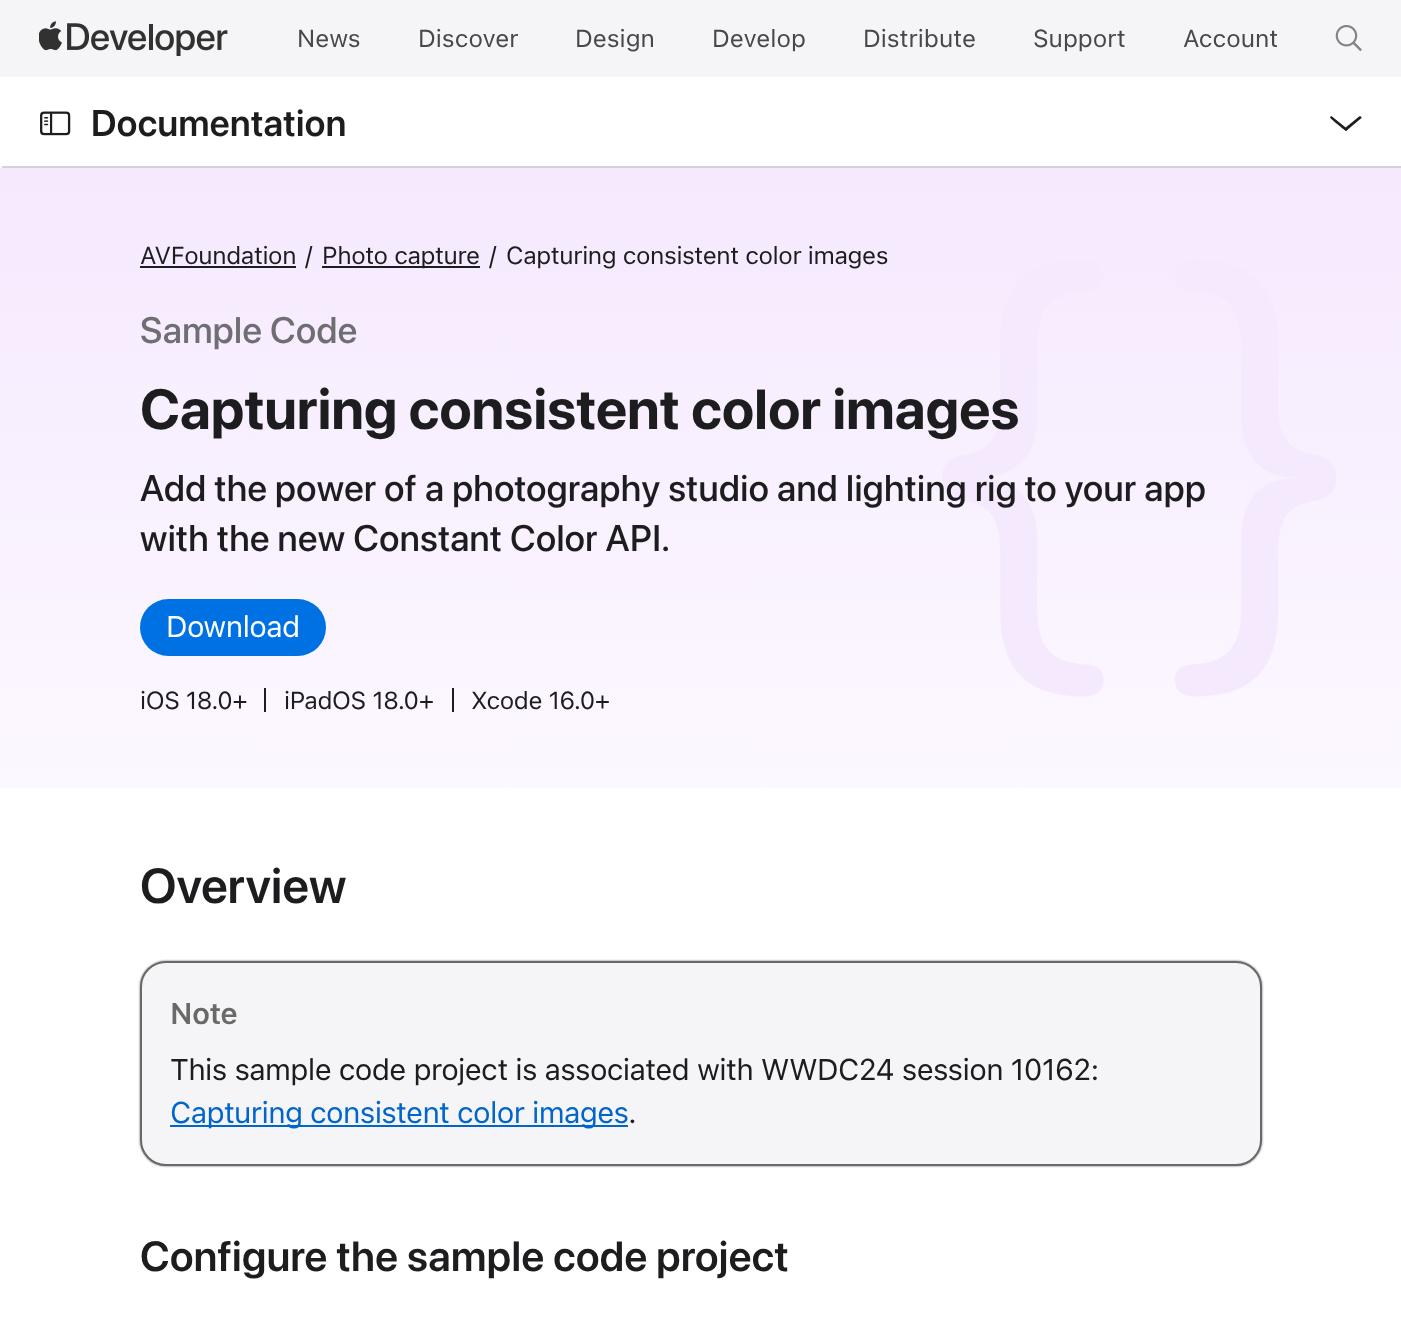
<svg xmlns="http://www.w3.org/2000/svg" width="1401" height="1318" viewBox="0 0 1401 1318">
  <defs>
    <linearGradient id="g1" gradientUnits="userSpaceOnUse" x1="701" y1="168" x2="701" y2="788"><stop offset="0" stop-color="#f5e9fe"/><stop offset="1" stop-color="#fcf8ff"/></linearGradient>
  </defs>
  <rect width="100%" height="100%" fill="#fff"/>
  <path d="M0 0h1401v77H0z" fill="#f5f5f7"/>
  <image x="39" y="21" width="189" height="35" href="img/1.png"/>
  <image x="1335" y="24" width="27" height="28" href="img/2.png"/>
  <image x="40" y="111" width="31" height="25" href="img/3.png"/>
  <path d="M1332 116.5L1347.5 129L1346 131C1344 129.5 1330 118.5 1330 117.5C1330 117 1331 115.5 1332 116.5Z" fill="#1d1d1f"/>
  <path d="M1344 129C1346 127.5 1359.5 116 1360 116C1361 116.5 1362 117.5 1361.5 118L1346 131Z" fill="#1d1d1f"/>
  <path d="M2 166h1399v2H2z" fill="#d2d2d2"/>
  <path d="M0 168h1401v620H0z" fill="url(#g1)"/>
  <path d="M140 266h156v2H140z" fill="#1d1d1f"/>
  <path d="M322 266h158v2H322z" fill="#1d1d1f"/>
  <rect x="140" y="599" width="186" height="57" rx="28.5" fill="#0071e3"/>
  <path d="M264 688h2v24H264z" fill="#1d1d1f"/>
  <path d="M452 688h2v24H452z" fill="#1d1d1f"/>
  <image x="942" y="259" width="395" height="438" href="img/4.png"/>
  <rect x="140" y="961" width="1122" height="205" rx="26" fill="#696969" filter="blur(1px)"/>
  <rect x="141" y="962" width="1120" height="203" rx="25" fill="#f5f5f7" stroke="#696969" stroke-width="2"/>
  <path d="M170 1125h458v2H170z" fill="#06c"/>
  <g font-family="SF Pro Text" font-size="24.5" fill="#48484a">
    <text x="297" y="47">News</text>
    <text x="418" y="47">Discover</text>
    <text x="575" y="47">Design</text>
    <text x="712" y="47">Develop</text>
    <text x="863" y="47">Distribute</text>
    <text x="1033" y="47">Support</text>
    <text x="1183" y="47">Account</text>
  </g>
  <text x="91" y="136" font-family="SF Pro Display" font-size="36.75" font-weight="600" letter-spacing="0.4" fill="#1d1d1f">Documentation</text>
  <g font-family="SF Pro Text" font-size="24.5" letter-spacing="-0.4" fill="#1d1d1f">
    <text x="140" y="264">AVFoundation</text>
    <text x="305" y="264">/</text>
    <text x="322" y="264">Photo capture</text>
    <text x="489" y="264">/</text>
    <text x="506" y="264">Capturing consistent color images</text>
  </g>
  <text x="140" y="343" font-family="SF Pro Display" font-size="36.75" font-weight="500" letter-spacing="0.4" fill="#6e6e73">Sample Code</text>
  <text x="140" y="429" font-family="SF Pro Display" font-size="56" font-weight="bold" letter-spacing="0.25" fill="#1d1d1f">Capturing consistent color images</text>
  <g font-family="SF Pro Display" font-size="36.75" font-weight="500" letter-spacing="0.4" fill="#1d1d1f">
    <text x="140" y="501">Add the power of a photography studio and lighting rig to your app</text>
    <text x="140" y="551">with the new Constant Color API.</text>
  </g>
  <text x="166" y="637" font-family="SF Pro Text" font-size="29.75" letter-spacing="-0.65" fill="#fff">Download</text>
  <g font-family="SF Pro Text" font-size="24.5" letter-spacing="-0.4" fill="#1d1d1f">
    <text x="140" y="709">iOS 18.0+</text>
    <text x="284" y="709">iPadOS 18.0+</text>
    <text x="471" y="709">Xcode 16.0+</text>
  </g>
  <text x="140" y="903" font-family="SF Pro Display" font-size="49" font-weight="600" letter-spacing="0.25" fill="#1d1d1f">Overview</text>
  <text x="170" y="1024" font-family="SF Pro Text" font-size="29.75" font-weight="600" letter-spacing="-0.65" fill="#696969">Note</text>
  <text x="170" y="1080" font-family="SF Pro Text" font-size="29.75" letter-spacing="-0.65" fill="#1d1d1f">This sample code project is associated with WWDC24 session 10162:</text>
  <text x="170" y="1123" font-family="SF Pro Text" font-size="29.75" letter-spacing="-0.65" fill="#06c">Capturing consistent color images</text>
  <text x="628" y="1123" font-family="SF Pro Text" font-size="29.75" letter-spacing="-0.65" fill="#1d1d1f">.</text>
  <text x="140" y="1271" font-family="SF Pro Display" font-size="42" font-weight="600" letter-spacing="0.4" fill="#1d1d1f">Configure the sample code project</text>
</svg>
